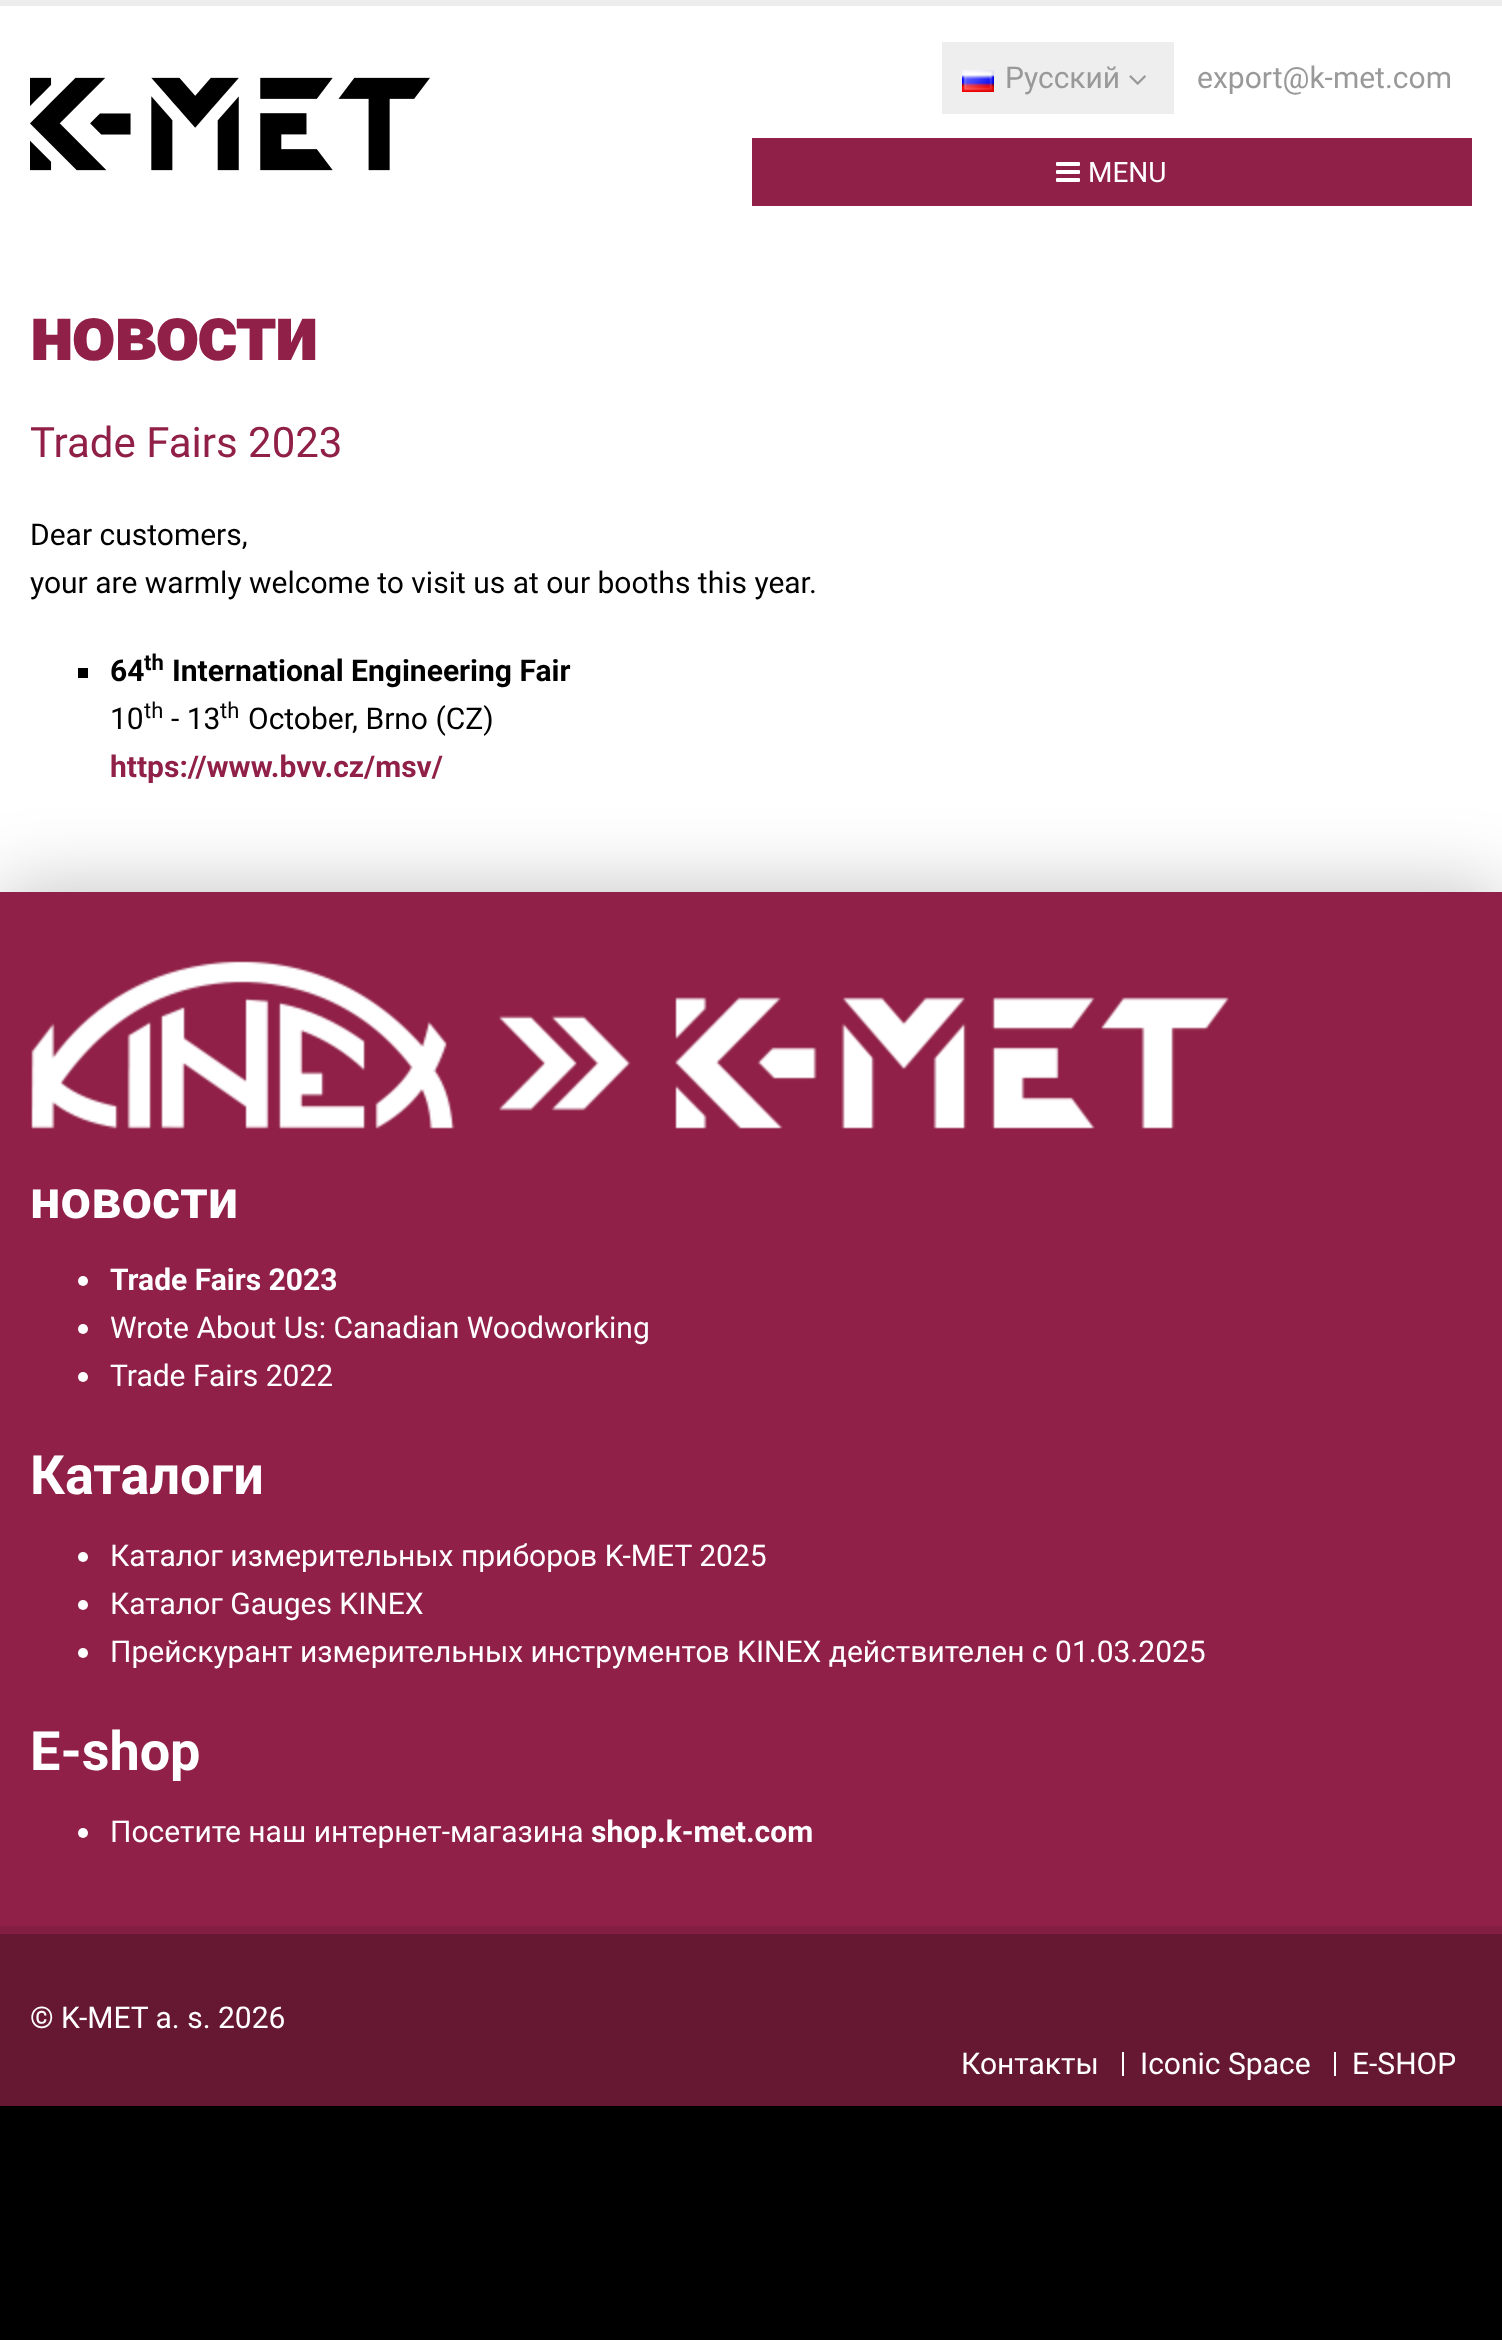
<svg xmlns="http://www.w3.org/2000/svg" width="1502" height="2340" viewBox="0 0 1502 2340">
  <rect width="100%" height="100%" fill="#000"/>
  <path d="M0 6h1502v886H0z" fill="#fff"/>
  <path d="M0 0h1502v6H0z" fill="#ededed"/>
  <image x="30" y="77" width="400" height="94" href="img/1.png"/>
  <path d="M942 42h232v72H942z" fill="#eee"/>
  <image x="962" y="70" width="32" height="22" href="img/2.png"/>
  <image x="1129" y="75" width="17" height="10" href="img/3.png"/>
  <path d="M752 138h720v68H752z" fill="#902047"/>
  <image x="1056" y="162" width="24" height="20" href="img/4.png"/>
  <path d="M78 668h10v10H78z" fill="#000"/>
  <path d="M0 892h1502v1214H0z" fill="#00000040" filter="blur(40px)"/>
  <path d="M0 892h1502v1034H0z" fill="#902047"/>
  <image x="31" y="961" width="1198" height="168" href="img/5.png"/>
  <circle cx="83" cy="1281" r="5" fill="#fff"/>
  <circle cx="83" cy="1329" r="5" fill="#fff"/>
  <circle cx="83" cy="1377" r="5" fill="#fff"/>
  <circle cx="83" cy="1557" r="5" fill="#fff"/>
  <circle cx="83" cy="1605" r="5" fill="#fff"/>
  <circle cx="83" cy="1653" r="5" fill="#fff"/>
  <circle cx="83" cy="1833" r="5" fill="#fff"/>
  <path d="M0 1934h1502v172H0z" fill="#661732"/>
  <path d="M0 1926h1502v8H0z" fill="#831d41"/>
  <path d="M1122 2052h2v24H1122z" fill="#fff"/>
  <path d="M1334 2052h2v24H1334z" fill="#fff"/>
  <g font-family="Roboto" font-size="30" fill="#999">
    <text x="1005" y="88">Pусский</text>
    <text x="1197" y="88">export@k-met.com</text>
  </g>
  <text x="1088" y="182" font-family="Roboto" font-size="28" fill="#fff">MENU</text>
  <text x="30" y="360" font-family="Roboto" font-size="78" font-weight="900" letter-spacing="-2" fill="#902047">новости</text>
  <text x="30" y="457" font-family="Roboto" font-size="42" fill="#902047">Trade Fairs 2023</text>
  <g font-family="Roboto" font-size="30" fill="#000">
    <text x="30" y="545">Dear customers,</text>
    <text x="30" y="593">your are warmly welcome to visit us at our booths this year.</text>
  </g>
  <text x="110" y="681" font-family="Roboto" font-size="30" font-weight="bold" fill="#000">64</text>
  <text x="144" y="670" font-family="Roboto" font-size="22" font-weight="bold" fill="#000">th</text>
  <text x="172" y="681" font-family="Roboto" font-size="30" font-weight="bold" fill="#000">International Engineering Fair</text>
  <text x="110" y="729" font-family="Roboto" font-size="30" fill="#000">10</text>
  <text x="144" y="718" font-family="Roboto" font-size="22" fill="#000">th</text>
  <text x="171" y="729" font-family="Roboto" font-size="30" fill="#000">- 13</text>
  <text x="220" y="718" font-family="Roboto" font-size="22" fill="#000">th</text>
  <text x="248" y="729" font-family="Roboto" font-size="30" fill="#000">October, Brno (CZ)</text>
  <text x="110" y="777" font-family="Roboto" font-size="30" font-weight="bold" fill="#902047">https://www.bvv.cz/msv/</text>
  <text x="30" y="1218" font-family="Roboto" font-size="54" font-weight="bold" fill="#fff">новости</text>
  <text x="110" y="1290" font-family="Roboto" font-size="30" font-weight="bold" fill="#fff">Trade Fairs 2023</text>
  <g font-family="Roboto" font-size="30" fill="#fff">
    <text x="110" y="1338">Wrote About Us: Canadian Woodworking</text>
    <text x="110" y="1386">Trade Fairs 2022</text>
  </g>
  <text x="30" y="1494" font-family="Roboto" font-size="54" font-weight="bold" fill="#fff">Каталоги</text>
  <g font-family="Roboto" font-size="30" fill="#fff">
    <text x="110" y="1566">Каталог измерительных приборов K-MET 2025</text>
    <text x="110" y="1614">Каталог Gauges KINEX</text>
    <text x="110" y="1662">Прейскурант измерительных инструментов KINEX действителен с 01.03.2025</text>
  </g>
  <text x="30" y="1770" font-family="Roboto" font-size="54" font-weight="bold" fill="#fff">E-shop</text>
  <text x="110" y="1842" font-family="Roboto" font-size="30" fill="#fff">Посетите наш интернет-магазина</text>
  <text x="591" y="1842" font-family="Roboto" font-size="30" font-weight="bold" fill="#fff">shop.k-met.com</text>
  <g font-family="Roboto" font-size="30" fill="#fff">
    <text x="30" y="2028">© K-MET a. s. 2026</text>
    <text x="961" y="2074">Контакты</text>
    <text x="1140" y="2074">Iconic Space</text>
    <text x="1352" y="2074">E-SHOP</text>
  </g>
</svg>
